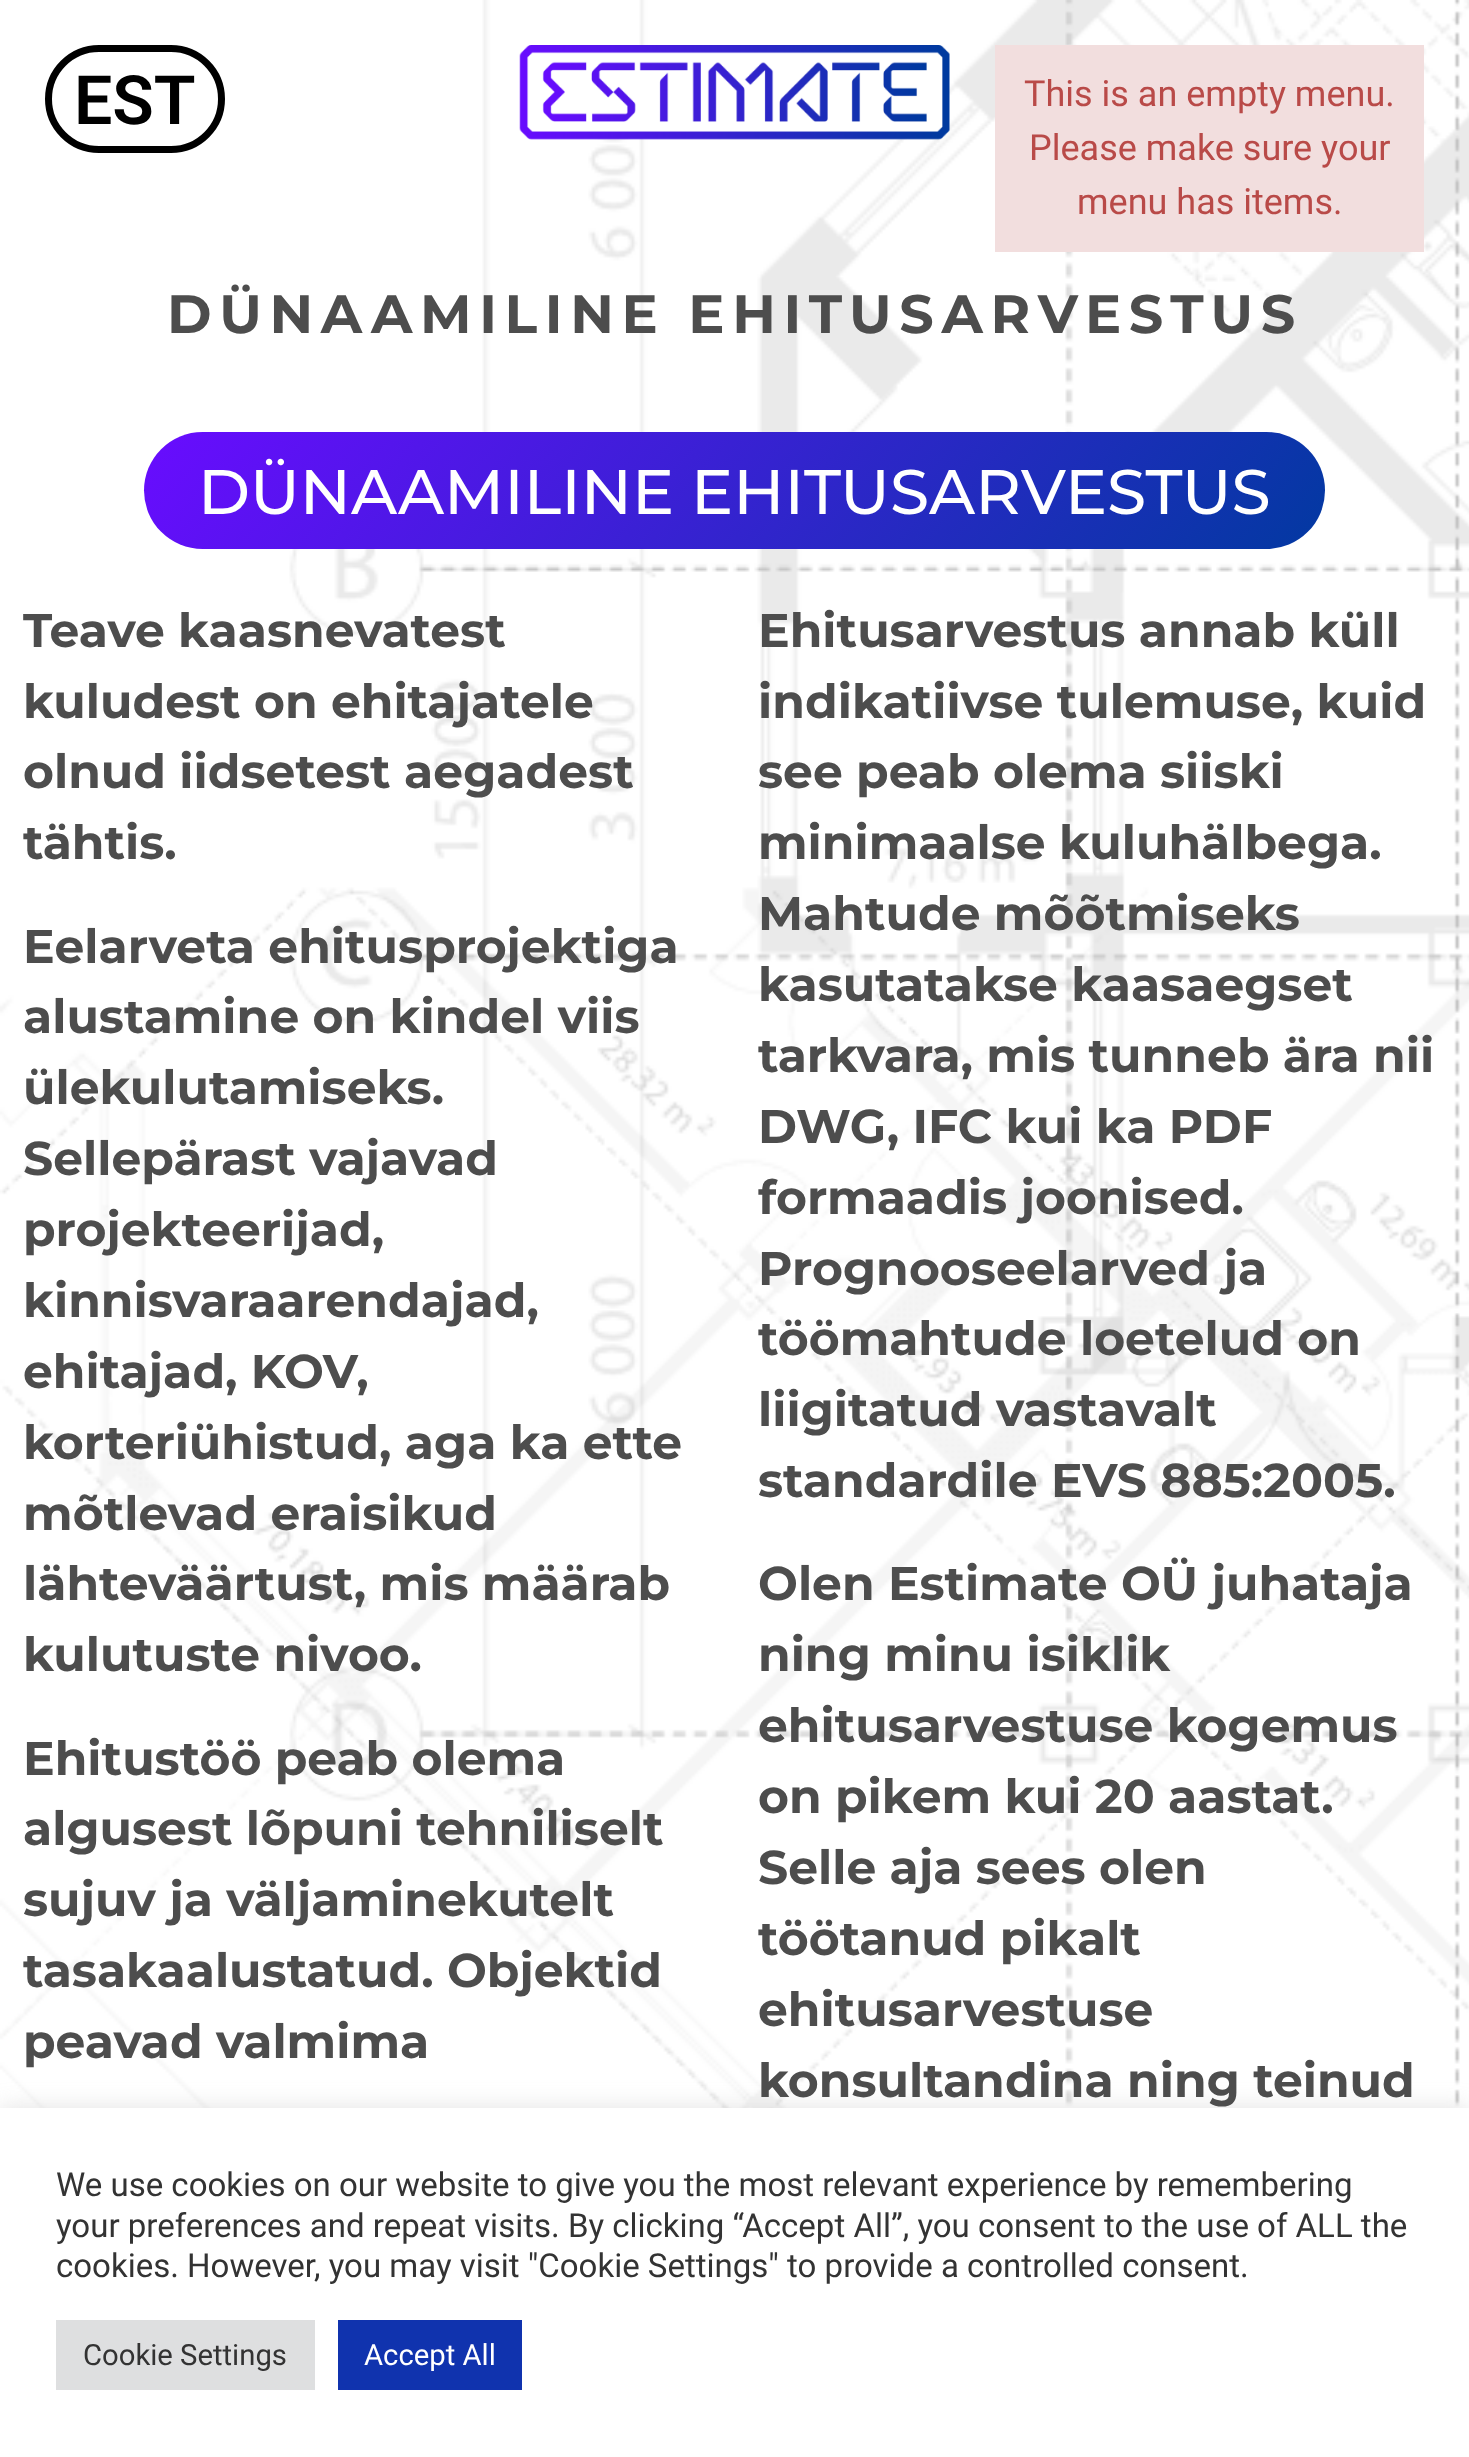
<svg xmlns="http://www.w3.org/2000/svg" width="1469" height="2457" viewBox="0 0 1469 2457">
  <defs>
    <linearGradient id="g1" gradientUnits="userSpaceOnUse" x1="359" y1="176" x2="1110" y2="805"><stop offset="0" stop-color="#690cff"/><stop offset="1" stop-color="#0239a1"/></linearGradient>
  </defs>
  <rect width="100%" height="100%" fill="#fff"/>
  <image x="0" y="0" width="1469" height="2108" href="img/1.png"/>
  <rect x="48.5" y="48.5" width="173" height="101" rx="50.5" fill="none" stroke="#000" stroke-width="7"/>
  <image x="519" y="45" width="431" height="95" href="img/2.png"/>
  <path d="M995 45h429v207H995z" fill="#f2dede"/>
  <rect x="144" y="432" width="1181" height="117" rx="58.5" fill="url(#g1)"/>
  <path d="M0 2106h1469v349H0z" fill="#acabab4d" filter="blur(11px)"/>
  <path d="M0 2108h1469v349H0z" fill="#fff"/>
  <path d="M56 2320h259v70H56z" fill="#dedfe0"/>
  <path d="M338 2320h184v70H338z" fill="#1033ae"/>
  <text x="74" y="124" font-family="Roboto" font-size="68" font-weight="600" fill="#000">EST</text>
  <g font-family="Roboto" font-size="36" fill="#b94a48">
    <text x="1024" y="106">This is an empty menu.</text>
    <text x="1029" y="160">Please make sure your</text>
    <text x="1077" y="214">menu has items.</text>
  </g>
  <text x="167" y="333" font-family="Montserrat" font-size="54" font-weight="bold" letter-spacing="7.65" fill="#4d4d4d">DÜNAAMILINE EHITUSARVESTUS</text>
  <text x="198" y="514" font-family="Montserrat" font-size="63" font-weight="500" fill="#fff">DÜNAAMILINE EHITUSARVESTUS</text>
  <g font-family="Montserrat" font-size="47.25" font-weight="bold" fill="#4d4d4d">
    <text x="23" y="647">Teave kaasnevatest</text>
    <text x="23" y="718">kuludest on ehitajatele</text>
    <text x="23" y="788">olnud iidsetest aegadest</text>
    <text x="23" y="859">tähtis.</text>
    <text x="758" y="647">Ehitusarvestus annab küll</text>
    <text x="758" y="718">indikatiivse tulemuse, kuid</text>
    <text x="758" y="788">see peab olema siiski</text>
    <text x="758" y="859">minimaalse kuluhälbega.</text>
    <text x="758" y="930">Mahtude mõõtmiseks</text>
    <text x="758" y="1001">kasutatakse kaasaegset</text>
    <text x="758" y="1072">tarkvara, mis tunneb ära nii</text>
    <text x="758" y="1143">DWG, IFC kui ka PDF</text>
    <text x="758" y="1214">formaadis joonised.</text>
    <text x="758" y="1285">Prognooseelarved ja</text>
    <text x="758" y="1355">töömahtude loetelud on</text>
    <text x="758" y="1426">liigitatud vastavalt</text>
    <text x="758" y="1497">standardile EVS 885:2005.</text>
    <text x="23" y="963">Eelarveta ehitusprojektiga</text>
    <text x="23" y="1033">alustamine on kindel viis</text>
    <text x="23" y="1104">ülekulutamiseks.</text>
    <text x="23" y="1175">Sellepärast vajavad</text>
    <text x="23" y="1246">projekteerijad,</text>
    <text x="23" y="1317">kinnisvaraarendajad,</text>
    <text x="23" y="1388">ehitajad, KOV,</text>
    <text x="23" y="1459">korteriühistud, aga ka ette</text>
    <text x="23" y="1530">mõtlevad eraisikud</text>
    <text x="23" y="1600">lähteväärtust, mis määrab</text>
    <text x="23" y="1671">kulutuste nivoo.</text>
    <text x="23" y="1775">Ehitustöö peab olema</text>
    <text x="23" y="1845">algusest lõpuni tehniliselt</text>
    <text x="23" y="1916">sujuv ja väljaminekutelt</text>
    <text x="23" y="1987">tasakaalustatud. Objektid</text>
    <text x="23" y="2058">peavad valmima</text>
    <text x="758" y="1600">Olen Estimate OÜ juhataja</text>
    <text x="758" y="1671">ning minu isiklik</text>
    <text x="758" y="1742">ehitusarvestuse kogemus</text>
    <text x="758" y="1813">on pikem kui 20 aastat.</text>
    <text x="758" y="1884">Selle aja sees olen</text>
    <text x="758" y="1955">töötanud pikalt</text>
    <text x="758" y="2026">ehitusarvestuse</text>
    <text x="758" y="2097">konsultandina ning teinud</text>
  </g>
  <g font-family="Roboto" font-size="33" fill="#333">
    <text x="56" y="2196">We use cookies on our website to give you the most relevant experience by remembering</text>
    <text x="56" y="2237">your preferences and repeat visits. By clicking “Accept All”, you consent to the use of ALL the</text>
    <text x="56" y="2277">cookies. However, you may visit "Cookie Settings" to provide a controlled consent.</text>
  </g>
  <text x="83" y="2365" font-family="Roboto" font-size="29.25" fill="#333">Cookie Settings</text>
  <text x="364" y="2365" font-family="Roboto" font-size="29.25" fill="#fff">Accept All</text>
</svg>
